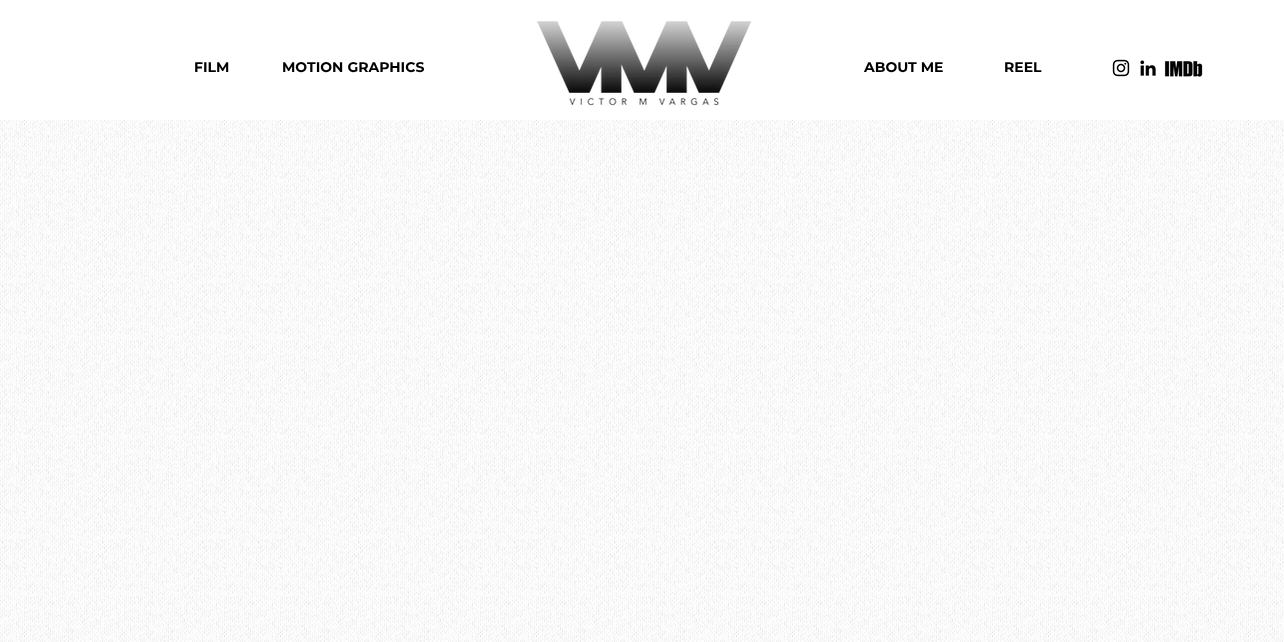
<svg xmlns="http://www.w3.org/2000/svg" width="1284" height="642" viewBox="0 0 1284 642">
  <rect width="100%" height="100%" fill="#fff"/>
  <image x="537" y="21" width="215" height="85" href="img/1.png"/>
  <image x="1112" y="59" width="18" height="18" href="img/2.png"/>
  <image x="1140" y="60" width="16" height="16" href="img/3.png"/>
  <image x="1164" y="61" width="39" height="16" href="img/4.png"/>
  <image x="0" y="120" width="1284" height="522" href="img/5.png"/>
  <g font-family="Montserrat" font-size="14" font-weight="bold" fill="#000">
    <text x="194" y="72">FILM</text>
    <text x="282" y="72">MOTION GRAPHICS</text>
    <text x="864" y="72">ABOUT ME</text>
    <text x="1004" y="72">REEL</text>
  </g>
</svg>
